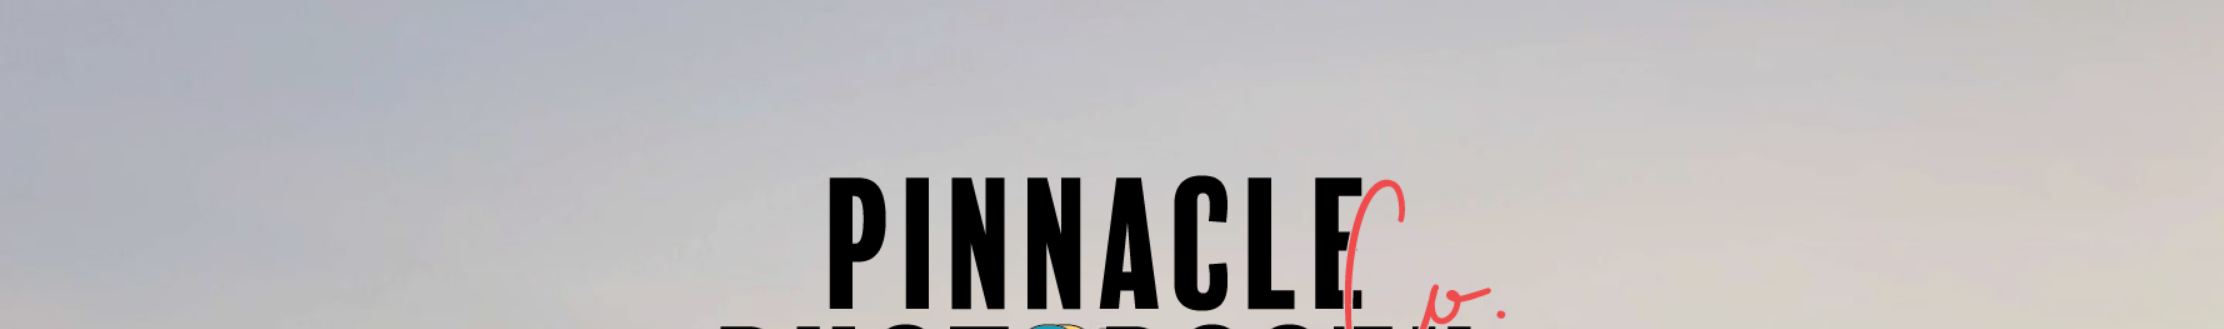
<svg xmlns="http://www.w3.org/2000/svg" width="2224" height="329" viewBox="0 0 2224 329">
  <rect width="100%" height="100%" fill="#fff"/>
  <image x="0" y="0" width="2224" height="329" href="img/1.png"/>
  <image x="719" y="174" width="788" height="155" href="img/2.png"/>
</svg>
